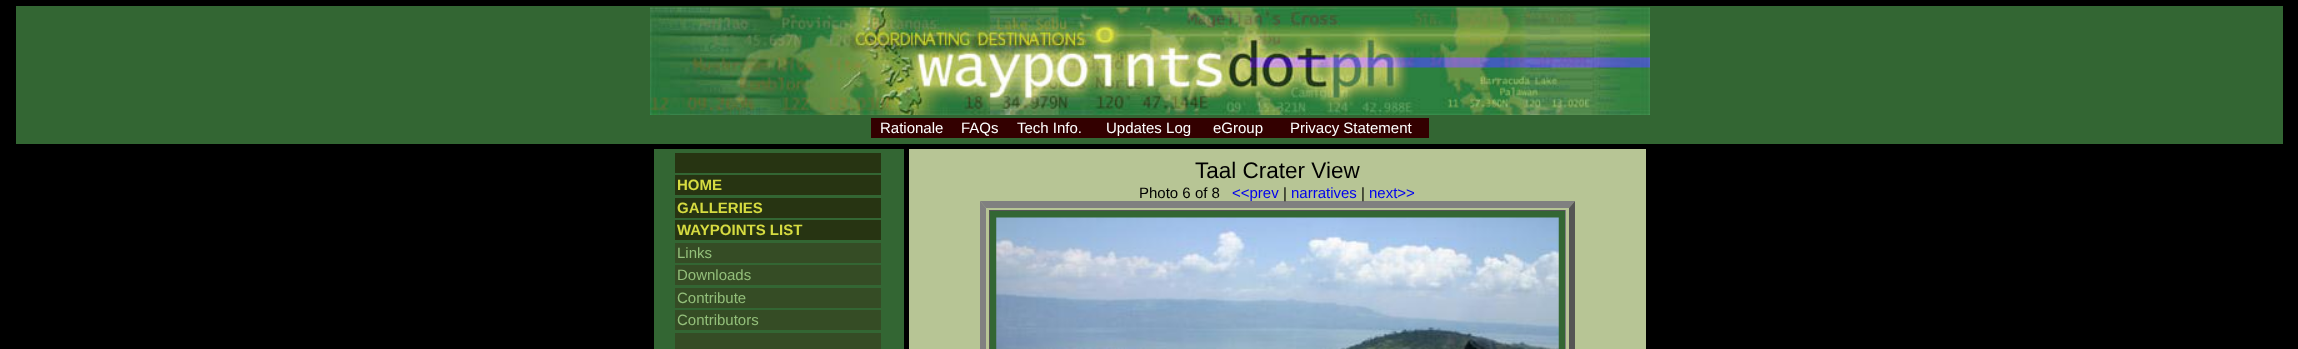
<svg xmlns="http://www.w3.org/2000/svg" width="2298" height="349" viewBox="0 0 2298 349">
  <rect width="100%" height="100%" fill="#000"/>
  <path d="M16 6h2267v138H16z" fill="#363"/>
  <image x="650" y="7" width="1000" height="108" href="img/1.png"/>
  <path d="M871 118h558v20H871z" fill="#300"/>
  <path d="M654 149h250v200H654z" fill="#363"/>
  <path d="M675 153h206v20H675z" fill="#273412"/>
  <path d="M675 175h206v20H675z" fill="#273412"/>
  <path d="M675 198h206v20H675z" fill="#273412"/>
  <path d="M675 220h206v20H675z" fill="#273412"/>
  <path d="M675 243h206v20H675z" fill="#354c25"/>
  <path d="M675 265h206v20H675z" fill="#354c25"/>
  <path d="M675 288h206v20H675z" fill="#354c25"/>
  <path d="M675 310h206v20H675z" fill="#354c25"/>
  <path d="M675 333h206v16H675z" fill="#354c25"/>
  <path d="M909 149h737v200H909z" fill="#b7c595"/>
  <path d="M980 201H1575L1569 208H986Z" fill="#808080"/>
  <path d="M1575 201V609L1569 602V208Z" fill="#555"/>
  <path d="M980 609V201L986 208V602Z" fill="#808080"/>
  <path d="M990 211h575v138H990z" fill="#363"/>
  <path d="M989 210h577v1H989z" fill="#555"/>
  <path d="M1565 210h1v139H1565z" fill="#808080"/>
  <path d="M989 210h1v139H989z" fill="#555"/>
  <image x="996" y="217" width="563" height="132" href="img/2.png"/>
  <g font-family="Liberation Sans" font-size="15" fill="#fff">
    <text x="880" y="133">Rationale</text>
    <text x="961" y="133">FAQs</text>
    <text x="1017" y="133">Tech Info.</text>
    <text x="1106" y="133">Updates Log</text>
    <text x="1213" y="133">eGroup</text>
    <text x="1290" y="133">Privacy Statement</text>
  </g>
  <g font-family="Liberation Sans" font-size="15" font-weight="bold" fill="#d6db41">
    <text x="677" y="190">HOME</text>
    <text x="677" y="213">GALLERIES</text>
    <text x="677" y="235">WAYPOINTS LIST</text>
  </g>
  <g font-family="Liberation Sans" font-size="15" fill="#93bf7a">
    <text x="677" y="258">Links</text>
    <text x="677" y="280">Downloads</text>
    <text x="677" y="303">Contribute</text>
    <text x="677" y="325">Contributors</text>
  </g>
  <text x="1195" y="178" font-family="Liberation Sans" font-size="22.5" fill="#000">Taal Crater View</text>
  <text x="1139" y="198" font-family="Liberation Sans" font-size="15" fill="#000">Photo 6 of 8</text>
  <text x="1232" y="198" font-family="Liberation Sans" font-size="15" fill="#00e">&lt;&lt;prev</text>
  <text x="1283" y="198" font-family="Liberation Sans" font-size="15" fill="#000">|</text>
  <text x="1291" y="198" font-family="Liberation Sans" font-size="15" fill="#00e">narratives</text>
  <text x="1361" y="198" font-family="Liberation Sans" font-size="15" fill="#000">|</text>
  <text x="1369" y="198" font-family="Liberation Sans" font-size="15" fill="#00e">next&gt;&gt;</text>
</svg>
